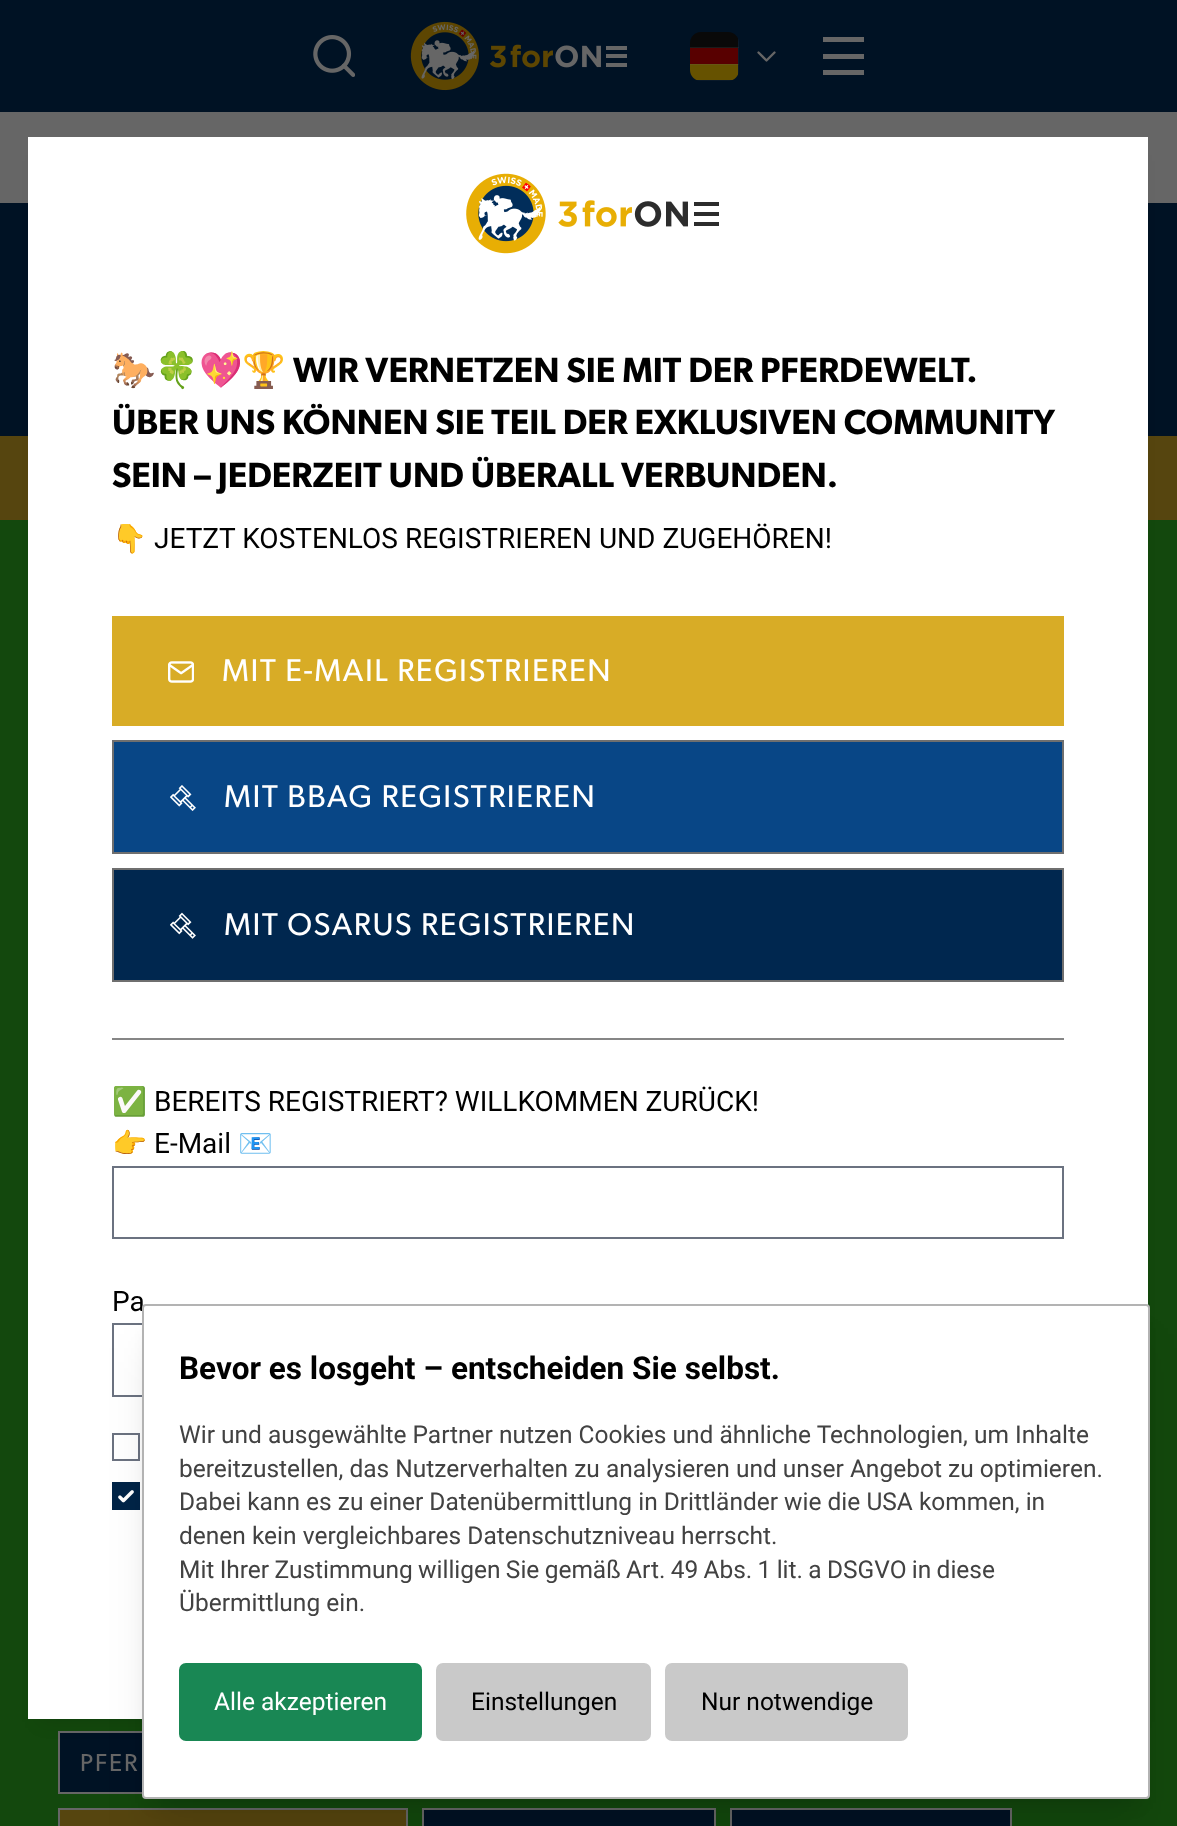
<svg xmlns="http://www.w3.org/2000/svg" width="1177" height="1826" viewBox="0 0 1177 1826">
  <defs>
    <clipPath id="clip1"><path d="M823 37h42v38H823z"/></clipPath>
  </defs>
  <rect width="100%" height="100%" fill="#56450f"/>
  <path d="M0 112h1177v91H0z" fill="#666"/>
  <path d="M0 203h1177v233H0z" fill="#001224"/>
  <path d="M0 520h1177v1306H0z" fill="#13480d"/>
  <path d="M60 1733h82v59H60z" fill="#001224"/>
  <path d="M59 1732h134v61H59z" fill="none" stroke="#666" stroke-width="2"/>
  <path d="M39 161h1099v1561H39z" fill="#0000001a" filter="blur(9px)"/>
  <path d="M28 137h1120v1582H28z" fill="#fff"/>
  <image x="466" y="173" width="253" height="81" href="img/1.png"/>
  <path d="M112 616h952v110H112z" fill="#d8ac26"/>
  <image x="168" y="661" width="26" height="22" href="img/2.png"/>
  <path d="M113 741h950v112H113z" fill="#084686" stroke="#6f6f6f" stroke-width="2"/>
  <image x="170" y="785" width="26" height="26" href="img/3.png"/>
  <path d="M113 869h950v112H113z" fill="#00274f" stroke="#6f6f6f" stroke-width="2"/>
  <image x="170" y="912" width="26" height="27" href="img/4.png"/>
  <path d="M112 1038h952v2H112z" fill="#868686"/>
  <path d="M113 1167h950v71H113z" fill="none" stroke="#6b7280" stroke-width="2"/>
  <path d="M113 1324h950v72H113z" fill="none" stroke="#6b7280" stroke-width="2"/>
  <path d="M113 1434h26v26H113z" fill="none" stroke="#6b7280" stroke-width="2"/>
  <path d="M112 1482h28v28H112z" fill="#012447"/>
  <image x="118" y="1490" width="16" height="13" href="img/5.png"/>
  <path d="M59 1809h348v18H59z" fill="#56450f" stroke="#666" stroke-width="2"/>
  <path d="M423 1809h292v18H423z" fill="#001224" stroke="#666" stroke-width="2"/>
  <path d="M731 1809h280v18H731z" fill="#001224" stroke="#666" stroke-width="2"/>
  <path d="M152 1328h987v475H152z" fill="#0000001a" filter="blur(9px)"/>
  <path d="M151 1348h990v477H151z" fill="#0000001a" filter="blur(22px)"/>
  <path d="M0 0h1177v112H0z" fill="#001224"/>
  <image x="313" y="35" width="42" height="42" href="img/6.png"/>
  <image x="410" y="21" width="217" height="70" href="img/7.png"/>
  <image x="690" y="32" width="49" height="49" href="img/8.png"/>
  <path d="M774.5 52.5L766.5 60.5L758.5 52.5" fill="none" stroke="#666" stroke-width="2.3" stroke-linecap="round" stroke-linejoin="round"/>
  <g clip-path="url(#clip1)">
    <path d="M823 76V70H864V76ZM823 59V54H864V59ZM823 42V37H864V42Z" fill="#666"/>
  </g>
  <text x="112" y="382" font-family="Noto Color Emoji" font-size="35" font-weight="bold" fill="#000">🐎🍀💖🏆</text>
  <g font-family="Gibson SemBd" font-size="35" font-weight="600" fill="#000">
    <text x="293" y="382">WIR VERNETZEN SIE MIT DER PFERDEWELT.</text>
    <text x="112" y="434">ÜBER UNS KÖNNEN SIE TEIL DER EXKLUSIVEN COMMUNITY</text>
    <text x="112" y="487">SEIN – JEDERZEIT UND ÜBERALL VERBUNDEN.</text>
  </g>
  <text x="112" y="548" font-family="Noto Color Emoji" font-size="28" fill="#000">👇</text>
  <text x="154" y="548" font-family="Roboto" font-size="28" fill="#000">JETZT KOSTENLOS REGISTRIEREN UND ZUGEHÖREN!</text>
  <g font-family="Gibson" font-size="31.5" letter-spacing="1.6" fill="#fff">
    <text x="222" y="681">MIT E-MAIL REGISTRIEREN</text>
    <text x="224" y="807">MIT BBAG REGISTRIEREN</text>
    <text x="224" y="935">MIT OSARUS REGISTRIEREN</text>
  </g>
  <text x="112" y="1111" font-family="Noto Color Emoji" font-size="28" fill="#000">✅</text>
  <text x="154" y="1111" font-family="Roboto" font-size="28" fill="#000">BEREITS REGISTRIERT? WILLKOMMEN ZURÜCK!</text>
  <text x="112" y="1153" font-family="Noto Color Emoji" font-size="28" fill="#000">👉</text>
  <text x="154" y="1153" font-family="Roboto" font-size="28" fill="#000">E-Mail</text>
  <text x="238" y="1153" font-family="Noto Color Emoji" font-size="28" fill="#000">📧</text>
  <text x="112" y="1311" font-family="Roboto" font-size="28" fill="#000">Pa</text>
  <rect x="143" y="1305" width="1006" height="493" rx="3" fill="#fff" stroke="#b3b3b3" stroke-width="2"/>
  <text x="179" y="1379" font-family="Roboto" font-size="31.5" font-weight="bold" fill="#000">Bevor es losgeht – entscheiden Sie selbst.</text>
  <g font-family="Roboto" font-size="24.5" fill="#424242">
    <text x="179" y="1443">Wir und ausgewählte Partner nutzen Cookies und ähnliche Technologien, um Inhalte</text>
    <text x="179" y="1477">bereitzustellen, das Nutzerverhalten zu analysieren und unser Angebot zu optimieren.</text>
    <text x="179" y="1510">Dabei kann es zu einer Datenübermittlung in Drittländer wie die USA kommen, in</text>
    <text x="179" y="1544">denen kein vergleichbares Datenschutzniveau herrscht.</text>
    <text x="179" y="1578" word-spacing="-0.8">Mit Ihrer Zustimmung willigen Sie gemäß Art. 49 Abs. 1 lit. a DSGVO in diese</text>
    <text x="179" y="1611">Übermittlung ein.</text>
  </g>
  <rect x="179" y="1663" width="243" height="78" rx="7" fill="#198754"/>
  <text x="214" y="1710" font-family="Roboto" font-size="24.5" fill="#fff">Alle akzeptieren</text>
  <rect x="436" y="1663" width="215" height="78" rx="7" fill="#c9c9c9"/>
  <text x="471" y="1710" font-family="Roboto" font-size="24.5" fill="#000">Einstellungen</text>
  <rect x="665" y="1663" width="243" height="78" rx="7" fill="#c9c9c9"/>
  <text x="701" y="1710" font-family="Roboto" font-size="24.5" fill="#000">Nur notwendige</text>
  <text x="80" y="1771" font-family="Gibson" font-size="24.5" letter-spacing="2" fill="#666">PFER</text>
</svg>
